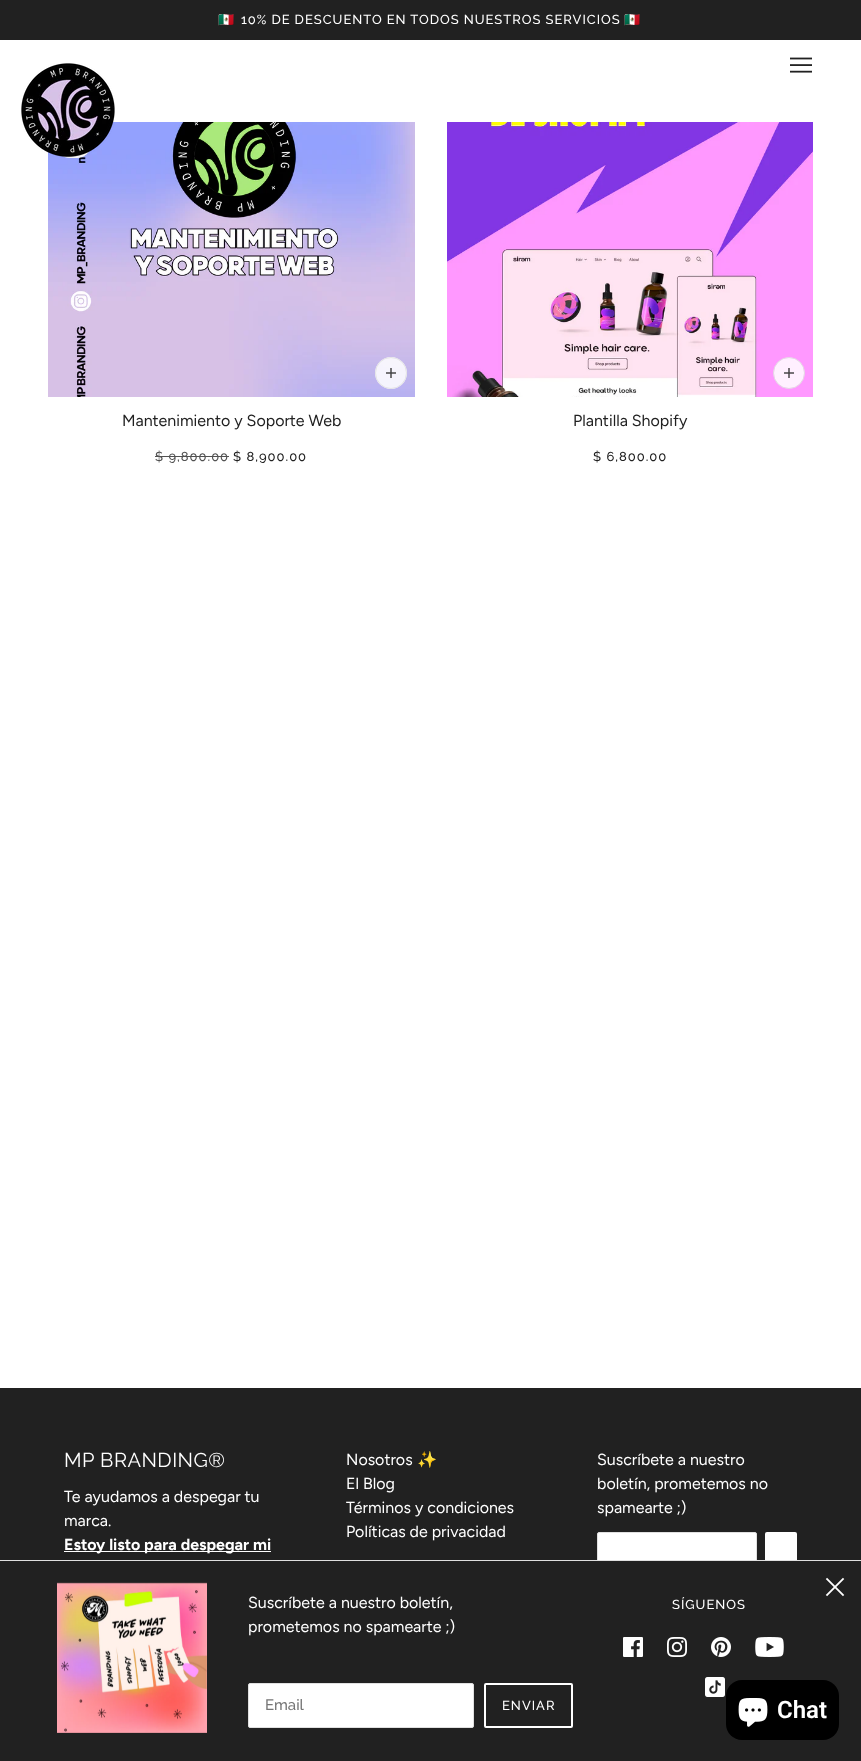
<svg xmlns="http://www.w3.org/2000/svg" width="861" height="1761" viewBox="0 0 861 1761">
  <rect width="100%" height="100%" fill="#fff"/>
  <path d="M0 0h861v40H0z" fill="#212121"/>
  <image x="48" y="122" width="367" height="275" href="img/3.png"/>
  <rect x="56" y="130" width="35" height="28" rx="14" fill="#f7f7f7"/>
  <image x="21" y="63" width="94" height="94" href="img/1.png"/>
  <image x="790" y="57" width="22" height="16" href="img/2.png"/>
  <circle cx="391" cy="373" r="16" fill="#ffffffd9"/>
  <circle cx="391" cy="373" r="15.5" fill="none" stroke="#e0e0e0d9"/>
  <image x="386" y="368" width="10" height="10" href="img/4.png"/>
  <path d="M155 456h74v1H155z" fill="#515151"/>
  <image x="447" y="122" width="366" height="275" href="img/5.png"/>
  <circle cx="789" cy="373" r="15.5" fill="#fff0ff" stroke="#e5d5e5"/>
  <image x="784" y="368" width="10" height="10" href="img/6.png"/>
  <path d="M0 1388h861v172H0z" fill="#212121"/>
  <path d="M64 1551h207v1H64z" fill="#fff"/>
  <rect x="597.5" y="1532.5" width="159" height="45" rx="1.5" fill="#fff" stroke="#e0e0e0"/>
  <rect x="765" y="1532" width="32" height="45" rx="2" fill="#fff"/>
  <path d="M0 1561h861v200H0z" fill="#212121"/>
  <path d="M0 1560h861v1H0z" fill="#e0e0e0"/>
  <image x="57" y="1582" width="150" height="151" href="img/7.png"/>
  <rect x="248.5" y="1683.5" width="225" height="44" rx="1.5" fill="#fff" stroke="#e0e0e0"/>
  <rect x="485" y="1684" width="87" height="43" rx="1" fill="none" stroke="#fff" stroke-width="2"/>
  <image x="623" y="1637" width="20" height="20" href="img/8.png"/>
  <image x="667" y="1637" width="20" height="20" href="img/9.png"/>
  <image x="711" y="1637" width="20" height="20" href="img/10.png"/>
  <image x="755" y="1637" width="29" height="20" href="img/11.png"/>
  <image x="705" y="1677" width="20" height="20" href="img/12.png"/>
  <image x="825" y="1577" width="20" height="20" href="img/13.png"/>
  <rect x="726" y="1680" width="113" height="60" rx="16" fill="#000"/>
  <image x="738" y="1698" width="30" height="29" href="img/14.png"/>
  <text x="218" y="24" font-family="Noto Color Emoji" font-size="13" letter-spacing="1" fill="#fff">🇲🇽</text>
  <text x="241" y="24" word-spacing="-0.25" font-family="Raleway" font-size="13" font-weight="500" letter-spacing="1" fill="#fff">10% DE DESCUENTO EN TODOS NUESTROS SERVICIOS</text>
  <text x="624" y="24" font-family="Noto Color Emoji" font-size="13" letter-spacing="1" fill="#fff">🇲🇽</text>
  <text x="122" y="426" font-family="Figtree" font-size="16" fill="#212121">Mantenimiento y Soporte Web</text>
  <text x="155" y="461" font-family="Raleway" font-size="13" font-weight="500" letter-spacing="1" fill="#515151">$ 9,800.00</text>
  <text x="233" y="461" font-family="Raleway" font-size="13" font-weight="500" letter-spacing="1" fill="#212121">$ 8,900.00</text>
  <text x="573" y="426" font-family="Figtree" font-size="16" fill="#212121">Plantilla Shopify</text>
  <text x="593" y="461" font-family="Raleway" font-size="13" font-weight="500" letter-spacing="1" fill="#212121">$ 6,800.00</text>
  <text x="64" y="1467" font-family="Raleway" font-size="20" letter-spacing="0.5" fill="#fff">MP BRANDING®</text>
  <g font-family="Figtree" font-size="16" fill="#fff">
    <text x="64" y="1502">Te ayudamos a despegar tu</text>
    <text x="64" y="1526">marca.</text>
  </g>
  <text x="64" y="1550" font-family="Figtree" font-size="16" font-weight="bold" fill="#fff">Estoy listo para despegar mi</text>
  <text x="346" y="1465" font-family="Figtree" font-size="16" fill="#fff">Nosotros</text>
  <text x="417" y="1465" font-family="Noto Color Emoji" font-size="16" fill="#fff">✨</text>
  <g font-family="Figtree" font-size="16" fill="#fff">
    <text x="346" y="1489">El Blog</text>
    <text x="346" y="1513">Términos y condiciones</text>
    <text x="346" y="1537">Políticas de privacidad</text>
    <text x="597" y="1465">Suscríbete a nuestro</text>
    <text x="597" y="1489">boletín, prometemos no</text>
    <text x="597" y="1513">spamearte ;)</text>
    <text x="248" y="1608">Suscríbete a nuestro boletín,</text>
    <text x="248" y="1632">prometemos no spamearte ;)</text>
  </g>
  <text x="265" y="1710" font-family="Raleway" font-size="15" font-weight="500" fill="#757575">Email</text>
  <g font-family="Raleway" font-size="13" font-weight="500" letter-spacing="1" fill="#fff">
    <text x="502" y="1710">ENVIAR</text>
    <text x="672" y="1609">SÍGUENOS</text>
  </g>
  <text x="777" y="1718" font-family="Roboto" font-size="24" font-weight="600" fill="#fff">Chat</text>
</svg>
